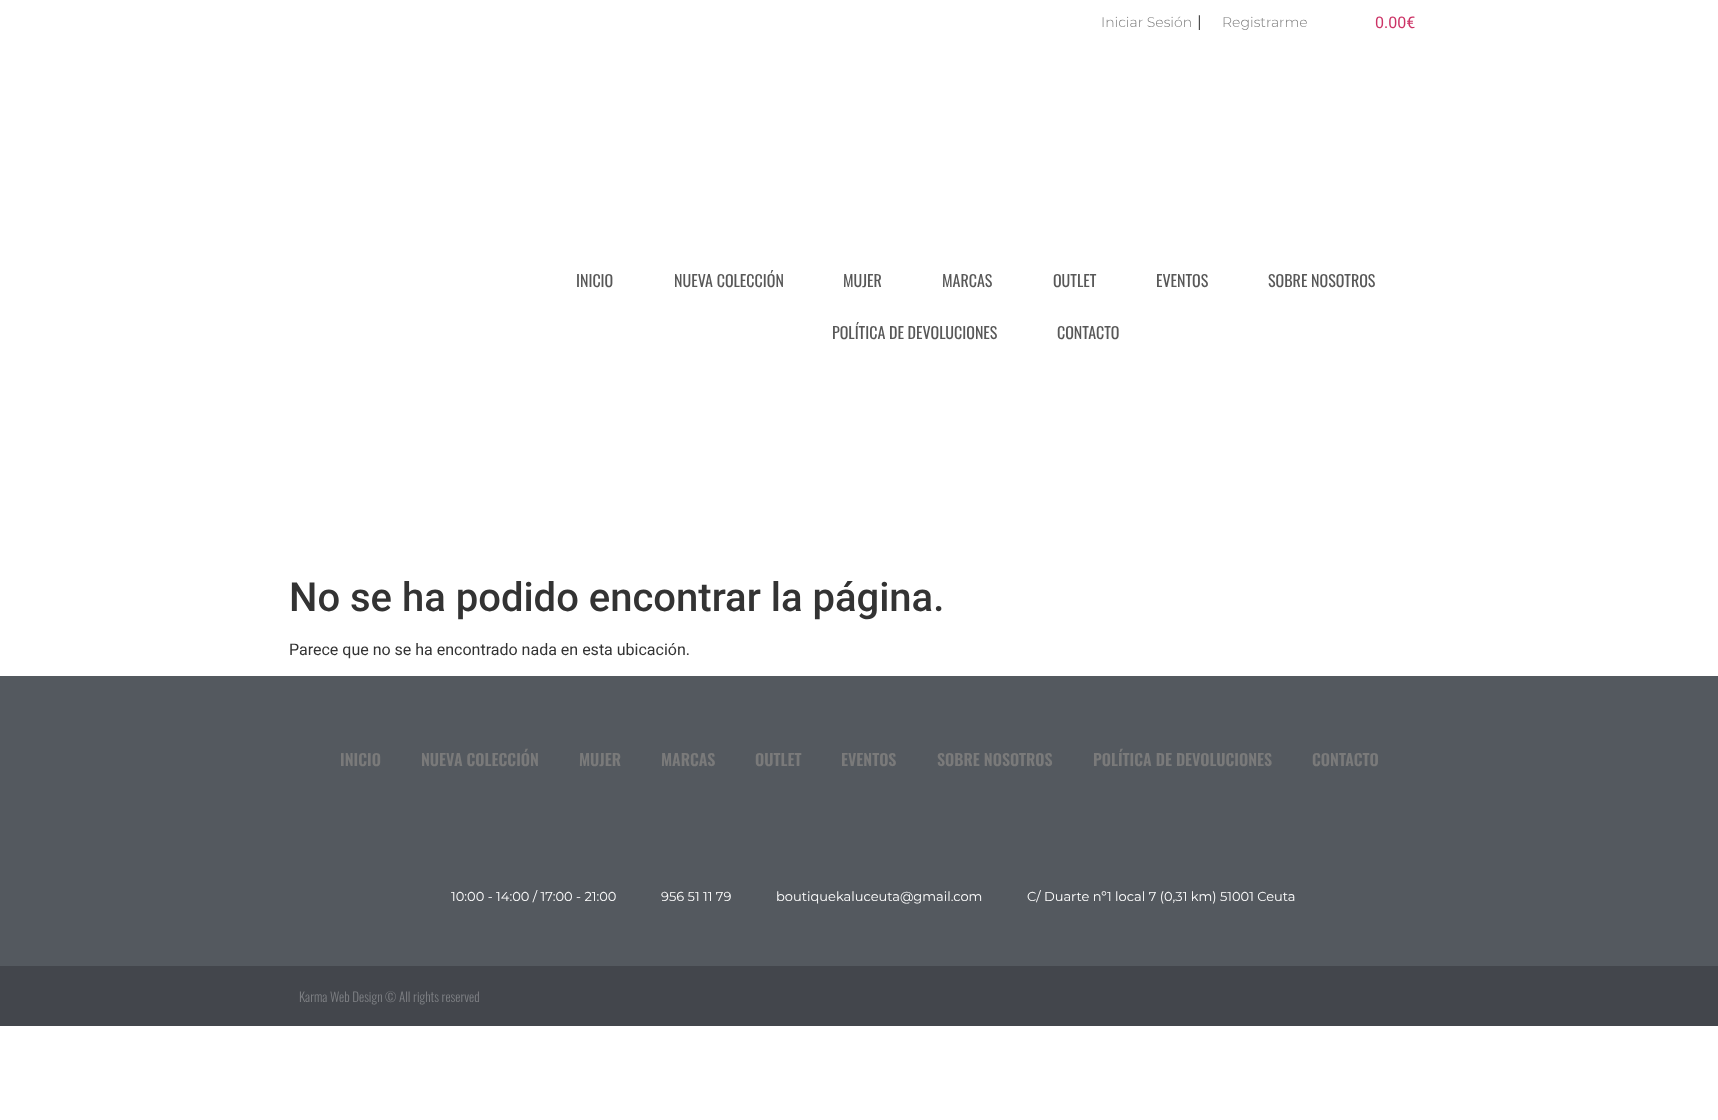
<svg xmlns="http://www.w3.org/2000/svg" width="1718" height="1120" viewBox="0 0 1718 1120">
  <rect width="100%" height="100%" fill="#fff"/>
  <path d="M0 676h1718v290H0z" fill="#54595f"/>
  <path d="M0 966h1718v60H0z" fill="#43464c"/>
  <text x="1101" y="27" font-family="Montserrat" font-size="14" font-weight="300" fill="#7a7a7a">Iniciar Sesión</text>
  <text x="1197" y="27" font-family="Montserrat" font-size="16" fill="#333">|</text>
  <text x="1222" y="27" font-family="Montserrat" font-size="14" font-weight="300" fill="#7a7a7a">Registrarme</text>
  <text x="1375" y="28" font-family="Roboto" font-size="16" fill="#c36">0.00€</text>
  <g font-family="Oswald" font-size="16" fill="#585858">
    <text x="576" y="287">INICIO</text>
    <text x="674" y="287">NUEVA COLECCIÓN</text>
    <text x="843" y="287">MUJER</text>
    <text x="942" y="287">MARCAS</text>
    <text x="1053" y="287">OUTLET</text>
    <text x="1156" y="287">EVENTOS</text>
    <text x="1268" y="287">SOBRE NOSOTROS</text>
    <text x="832" y="339">POLÍTICA DE DEVOLUCIONES</text>
    <text x="1057" y="339">CONTACTO</text>
  </g>
  <text x="289" y="611" font-family="Roboto" font-size="40" font-weight="500" fill="#333">No se ha podido encontrar la página.</text>
  <text x="289" y="655" font-family="Roboto" font-size="16" fill="#333">Parece que no se ha encontrado nada en esta ubicación.</text>
  <g font-family="Oswald" font-size="16" font-weight="600" fill="#7a7a7a">
    <text x="340" y="766">INICIO</text>
    <text x="421" y="766">NUEVA COLECCIÓN</text>
    <text x="579" y="766">MUJER</text>
    <text x="661" y="766">MARCAS</text>
    <text x="755" y="766">OUTLET</text>
    <text x="841" y="766">EVENTOS</text>
    <text x="937" y="766">SOBRE NOSOTROS</text>
    <text x="1093" y="766">POLÍTICA DE DEVOLUCIONES</text>
    <text x="1312" y="766">CONTACTO</text>
  </g>
  <g font-family="Montserrat" font-size="13" fill="#fff">
    <text x="451" y="901">10:00 - 14:00 / 17:00 - 21:00</text>
    <text x="661" y="901">956 51 11 79</text>
    <text x="776" y="901">boutiquekaluceuta@gmail.com</text>
    <text x="1027" y="901">C/ Duarte nº1 local 7 (0,31 km) 51001 Ceuta</text>
  </g>
  <text x="299" y="1002" font-family="Oswald" font-size="13" font-weight="300" fill="#7f8185">Karma Web Design © All rights reserved</text>
</svg>
